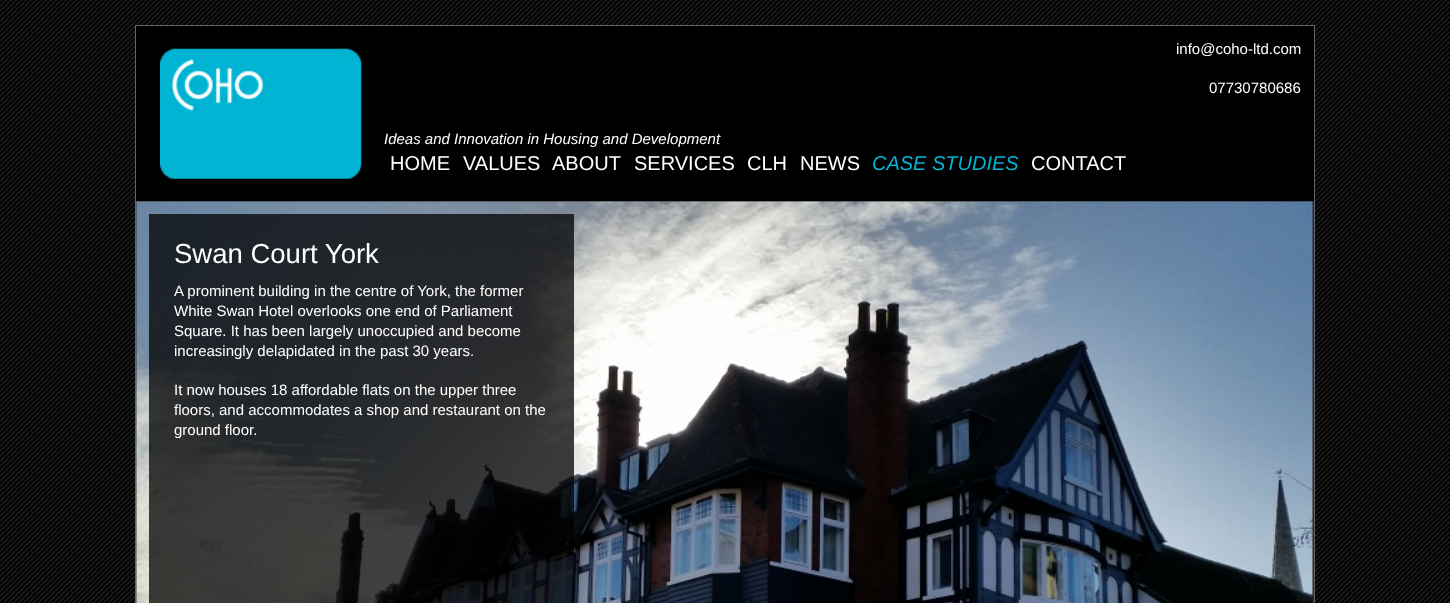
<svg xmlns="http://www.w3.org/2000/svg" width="1450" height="603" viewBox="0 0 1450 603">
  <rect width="100%" height="100%" fill="#fff"/>
  <image x="0" y="0" width="1450" height="603" href="img/1.png"/>
  <path d="M135.5 25.5h1179v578H135.5z" fill="none" stroke="#666"/>
  <path d="M136 26h1178v175H136z" fill="#000"/>
  <image x="160" y="48" width="202" height="131" href="img/2.png"/>
  <path d="M136 201h1178v402H136z" fill="#282828"/>
  <image x="136" y="201" width="1177" height="402" href="img/3.png"/>
  <path d="M149 214h425v389H149z" fill="#000000bf"/>
  <text x="384" y="144" font-family="Liberation Sans" font-size="15" font-style="italic" fill="#fff">Ideas and Innovation in Housing and Development</text>
  <g font-family="Liberation Sans" font-size="15" fill="#fff">
    <text x="1176" y="54">info@coho-ltd.com</text>
    <text x="1209" y="93">07730780686</text>
  </g>
  <g font-family="Liberation Sans" font-size="20" fill="#fff">
    <text x="390" y="170">HOME</text>
    <text x="463" y="170">VALUES</text>
    <text x="552" y="170">ABOUT</text>
    <text x="634" y="170">SERVICES</text>
    <text x="747" y="170">CLH</text>
    <text x="800" y="170">NEWS</text>
  </g>
  <text x="872" y="170" font-family="Liberation Sans" font-size="20" font-style="italic" fill="#01b4d2">CASE STUDIES</text>
  <text x="1031" y="170" font-family="Liberation Sans" font-size="20" fill="#fff">CONTACT</text>
  <text x="174" y="263" font-family="Liberation Sans" font-size="27.5" fill="#fff">Swan Court York</text>
  <g font-family="Liberation Sans" font-size="15" fill="#fff">
    <text x="174" y="296">A prominent building in the centre of York, the former</text>
    <text x="174" y="316">White Swan Hotel overlooks one end of Parliament</text>
    <text x="174" y="336">Square. It has been largely unoccupied and become</text>
    <text x="174" y="356">increasingly delapidated in the past 30 years.</text>
    <text x="174" y="395">It now houses 18 affordable flats on the upper three</text>
    <text x="174" y="415">floors, and accommodates a shop and restaurant on the</text>
    <text x="174" y="435">ground floor.</text>
  </g>
</svg>
